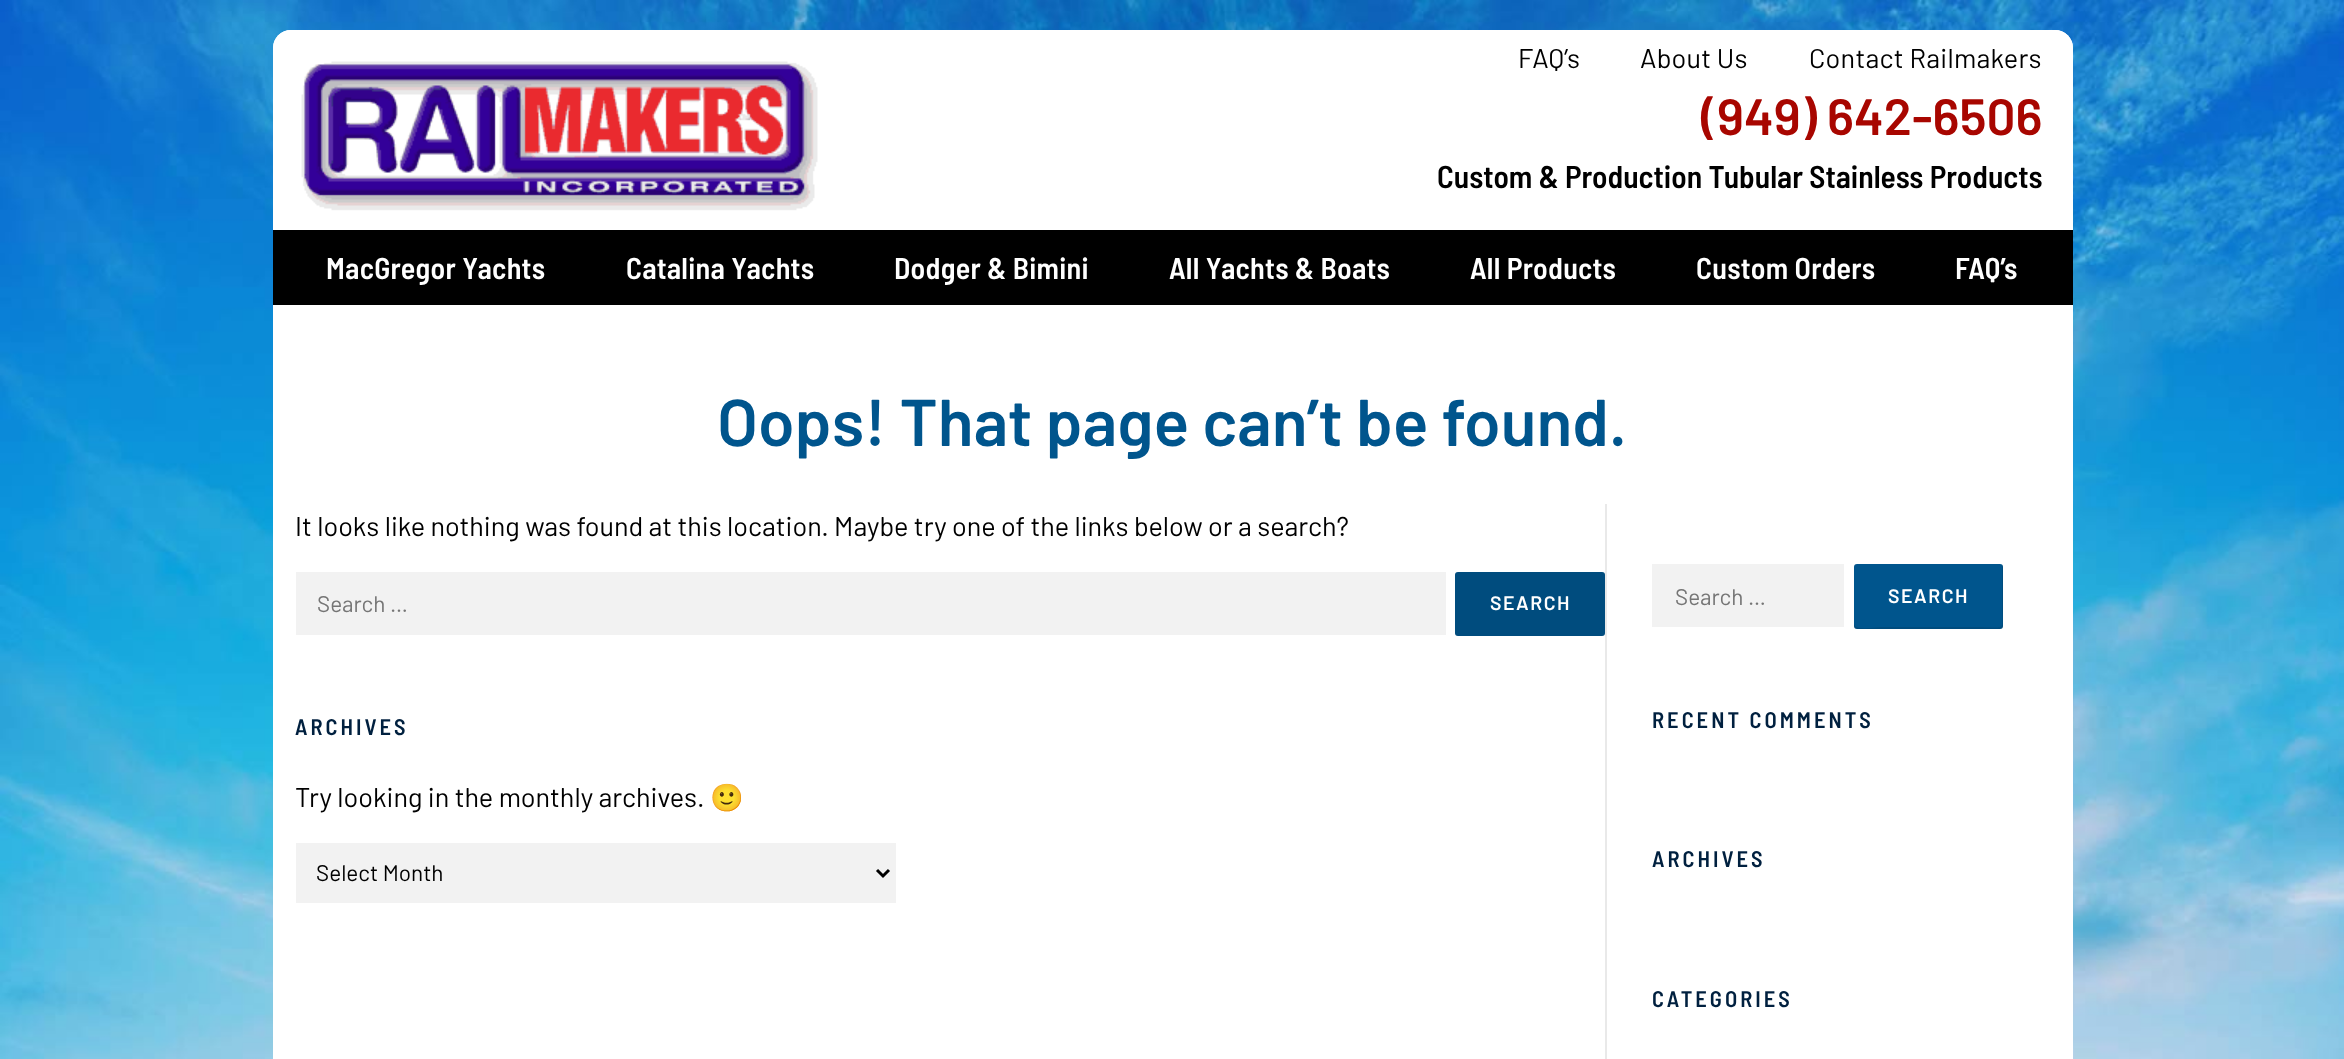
<svg xmlns="http://www.w3.org/2000/svg" width="2344" height="1059" viewBox="0 0 2344 1059">
  <rect width="100%" height="100%" fill="#fff"/>
  <image x="0" y="0" width="2344" height="1059" href="img/1.png"/>
  <rect x="273" y="30" width="1800" height="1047" rx="18" fill="#fff"/>
  <path d="M291 30H2055C2065 30 2073 38 2073 48V305H273V48C273 38 281 30 291 30Z" fill="#fff"/>
  <image x="301" y="61" width="517" height="150" href="img/2.png"/>
  <path d="M273 230h1800v75H273z" fill="#000"/>
  <path d="M296 572h1150v63H296z" fill="#f2f2f2"/>
  <rect x="1455" y="572" width="150" height="64" rx="3" fill="#00558d"/>
  <path d="M1458 572C1456 572 1455 573 1455 575V633C1455 635 1456 636 1458 636H1602C1604 636 1605 635 1605 633V575C1605 573 1604 572 1602 572Z" fill="#0000001a"/>
  <path d="M296 843h600v60H296z" fill="#f2f2f2"/>
  <path d="M877 870L883 876L889 870" fill="none" stroke="#000" stroke-width="3"/>
  <path d="M1605 504h2v555H1605z" fill="#e9e9e9"/>
  <path d="M1652 564h192v63H1652z" fill="#f2f2f2"/>
  <rect x="1854" y="564" width="149" height="65" rx="3" fill="#00558d"/>
  <path d="M1854 624C1854 631 1878 627 1881 627H1976C2008 627 2002 633 2002 605V565C2003 565 2003 566 2003 567V626C2003 628 2002 629 2000 629H1857C1855 629 1854 628 1854 626Z" fill="#0000001a"/>
  <g font-family="Barlow" font-size="27" letter-spacing="0.25" fill="#000">
    <text x="1518" y="68">FAQ’s</text>
    <text x="1640" y="68">About Us</text>
    <text x="1809" y="68">Contact Railmakers</text>
  </g>
  <text x="1701" y="135" font-family="Barlow" font-size="51" font-weight="600" fill="#a80600">(949) 642-6506</text>
  <text x="1437" y="188" font-family="Barlow Semi Condensed" font-size="31.5" font-weight="600" fill="#000">Custom &amp; Production Tubular Stainless Products</text>
  <g font-family="Barlow Semi Condensed" font-size="30" font-weight="600" letter-spacing="0.25" fill="#fff">
    <text x="326" y="279">MacGregor Yachts</text>
    <text x="626" y="279">Catalina Yachts</text>
    <text x="894" y="279">Dodger &amp; Bimini</text>
    <text x="1169" y="279">All Yachts &amp; Boats</text>
    <text x="1470" y="279">All Products</text>
    <text x="1696" y="279">Custom Orders</text>
    <text x="1955" y="279">FAQ’s</text>
  </g>
  <text x="717" y="446" font-family="Barlow" font-size="66" font-weight="600" fill="#00558d">Oops! That page can’t be found.</text>
  <text x="295" y="536" font-family="Barlow" font-size="27" fill="#000">It looks like nothing was found at this location. Maybe try one of the links below or a search?</text>
  <text x="317" y="612" font-family="Barlow" font-size="22.5" fill="#757575">Search …</text>
  <text x="1490" y="610" font-family="Barlow" font-size="19.5" font-weight="600" letter-spacing="1.5" fill="#fff">SEARCH</text>
  <text x="295" y="735" font-family="Barlow Semi Condensed" font-size="22.5" font-weight="600" letter-spacing="3" fill="#00203f">ARCHIVES</text>
  <text x="295" y="807" font-family="Barlow" font-size="27" fill="#000">Try looking in the monthly archives.</text>
  <text x="710" y="807" font-family="Noto Color Emoji" font-size="27" fill="#000">🙂</text>
  <text x="316" y="881" font-family="Barlow" font-size="22.5" fill="#000">Select Month</text>
  <text x="1675" y="605" font-family="Barlow" font-size="22.5" fill="#757575">Search …</text>
  <text x="1888" y="603" font-family="Barlow" font-size="19.5" font-weight="600" letter-spacing="1.5" fill="#fff">SEARCH</text>
  <g font-family="Barlow Semi Condensed" font-size="22.5" font-weight="600" letter-spacing="3" fill="#00203f">
    <text x="1652" y="728">RECENT COMMENTS</text>
    <text x="1652" y="867">ARCHIVES</text>
    <text x="1652" y="1007">CATEGORIES</text>
  </g>
</svg>
